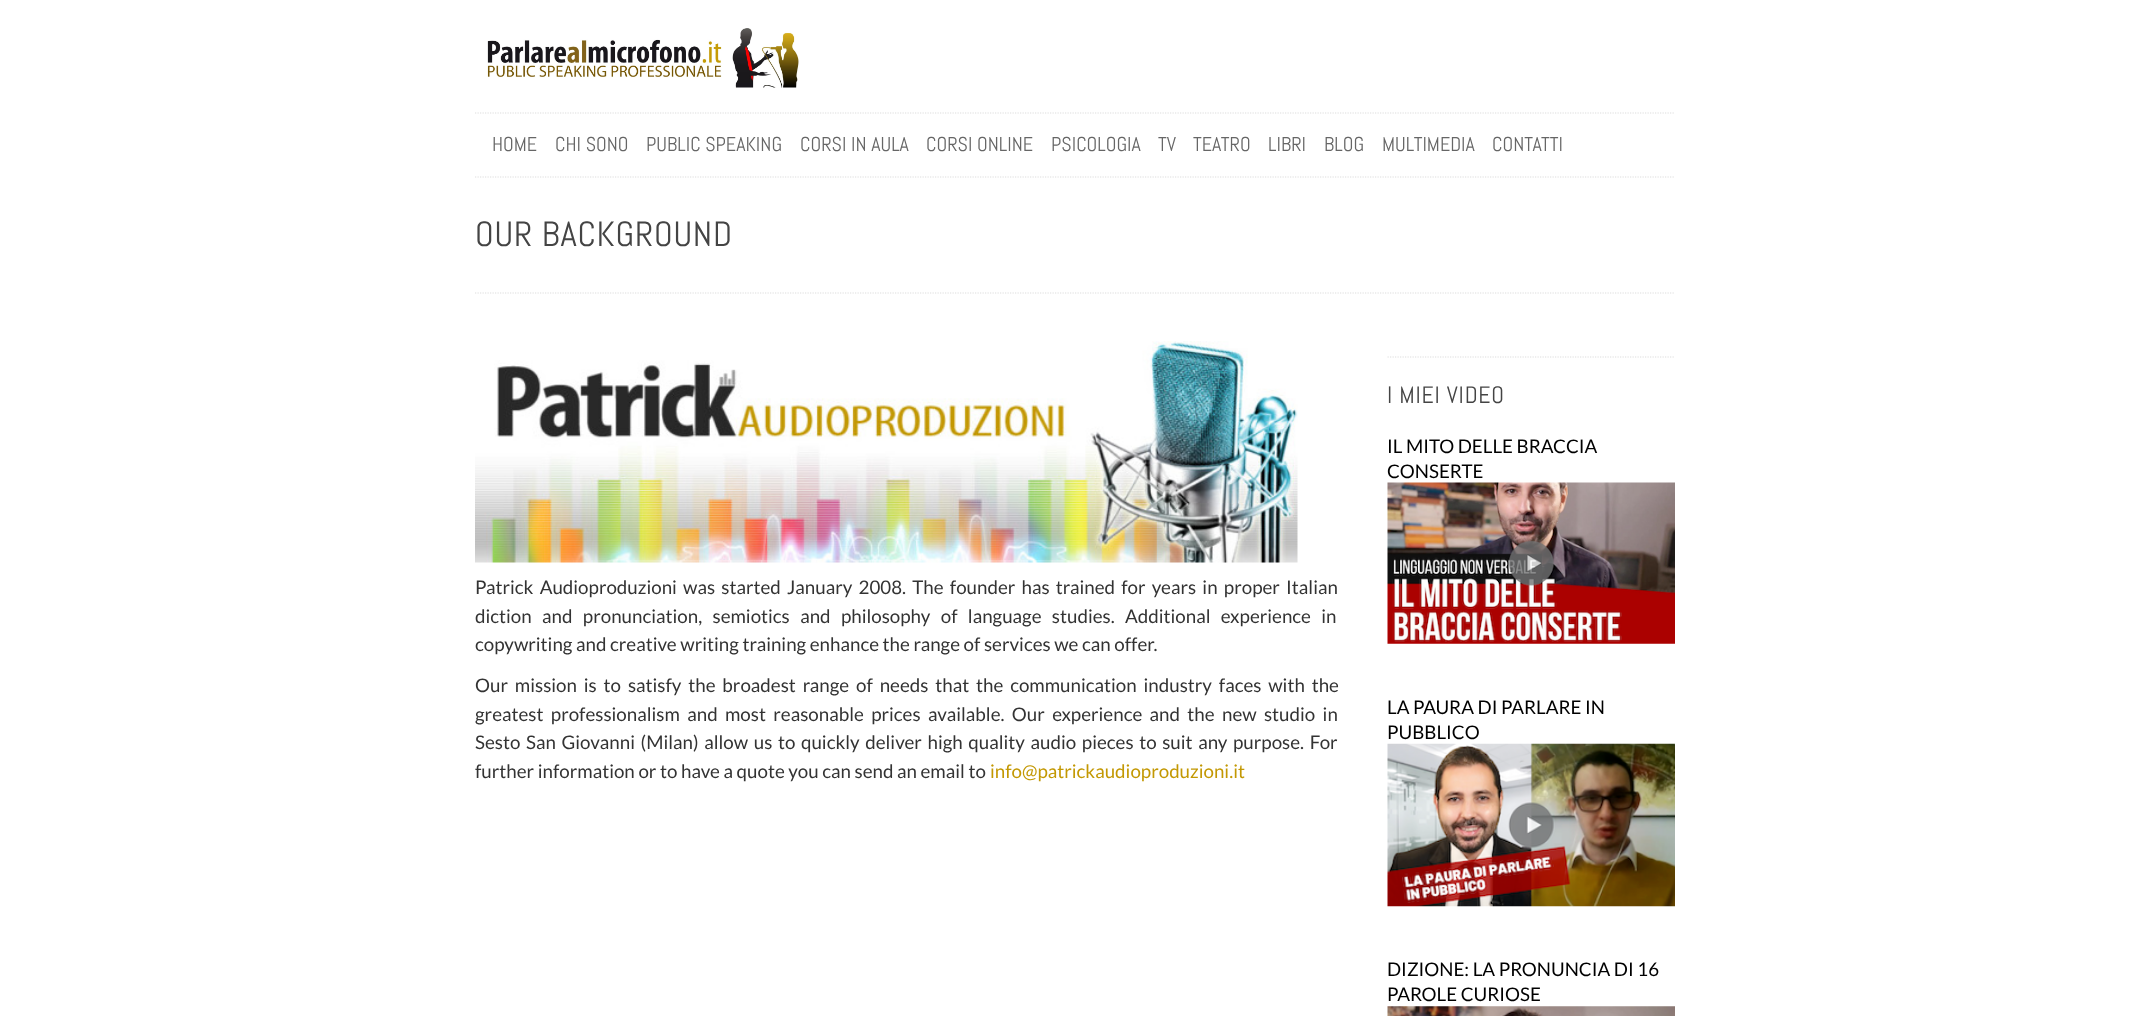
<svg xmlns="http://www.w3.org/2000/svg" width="2149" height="1016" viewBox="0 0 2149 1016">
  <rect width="100%" height="100%" fill="#fff"/>
  <image x="487" y="28" width="312" height="60" href="img/1.png"/>
  <path d="M475 113H1675" fill="none" stroke="#ddd" stroke-width="1.2" stroke-dasharray="1.25 1.25"/>
  <path d="M475 177H1675" fill="none" stroke="#ddd" stroke-width="1.2" stroke-dasharray="1.25 1.25"/>
  <path d="M475 293H1675" fill="none" stroke="#ddd" stroke-width="1.2" stroke-dasharray="1.25 1.25"/>
  <image x="475" y="341" width="823" height="222" href="img/2.png"/>
  <path d="M1387.5 357H1675" fill="none" stroke="#ddd" stroke-width="1.2" stroke-dasharray="1.25 1.25"/>
  <image x="1387" y="482" width="288" height="162" href="img/3.png"/>
  <image x="1387" y="743" width="288" height="164" href="img/4.png"/>
  <image x="1387" y="1006" width="288" height="10" href="img/5.png"/>
  <g font-family="Abel" font-size="20" fill="#666">
    <text x="492" y="151">HOME</text>
    <text x="555" y="151">CHI SONO</text>
    <text x="646" y="151">PUBLIC SPEAKING</text>
    <text x="800" y="151">CORSI IN AULA</text>
    <text x="926" y="151">CORSI ONLINE</text>
    <text x="1051" y="151">PSICOLOGIA</text>
    <text x="1158" y="151">TV</text>
    <text x="1193" y="151">TEATRO</text>
    <text x="1268" y="151">LIBRI</text>
    <text x="1324" y="151">BLOG</text>
    <text x="1382" y="151">MULTIMEDIA</text>
    <text x="1492" y="151">CONTATTI</text>
  </g>
  <text x="475" y="246" font-family="Abel" font-size="35" letter-spacing="0.75" fill="#444">OUR BACKGROUND</text>
  <g font-family="Lato" font-size="18.75" fill="#333">
    <text x="475" y="594" word-spacing="2.6">Patrick Audioproduzioni was started January 2008. The founder has trained for years in proper Italian</text>
    <text x="475" y="623" word-spacing="6.75">diction and pronunciation, semiotics and philosophy of language studies. Additional experience in</text>
    <text x="475" y="651">copywriting and creative writing training enhance the range of services we can offer.</text>
    <text x="475" y="692" word-spacing="3.25">Our mission is to satisfy the broadest range of needs that the communication industry faces with the</text>
    <text x="475" y="721" word-spacing="3.75">greatest professionalism and most reasonable prices available. Our experience and the new studio in</text>
    <text x="475" y="749" word-spacing="2">Sesto San Giovanni (Milan) allow us to quickly deliver high quality audio pieces to suit any purpose. For</text>
    <text x="475" y="778">further information or to have a quote you can send an email to</text>
  </g>
  <text x="990" y="778" font-family="Lato" font-size="18.75" fill="#c39803">info@patrickaudioproduzioni.it</text>
  <text x="1387" y="403" font-family="Abel" font-size="23.75" letter-spacing="0.75" fill="#444">I MIEI VIDEO</text>
  <g font-family="Lato" font-size="18.75" fill="#000">
    <text x="1387" y="453">IL MITO DELLE BRACCIA</text>
    <text x="1387" y="478">CONSERTE</text>
    <text x="1387" y="714">LA PAURA DI PARLARE IN</text>
    <text x="1387" y="739">PUBBLICO</text>
    <text x="1387" y="976">DIZIONE: LA PRONUNCIA DI 16</text>
    <text x="1387" y="1001">PAROLE CURIOSE</text>
  </g>
</svg>
